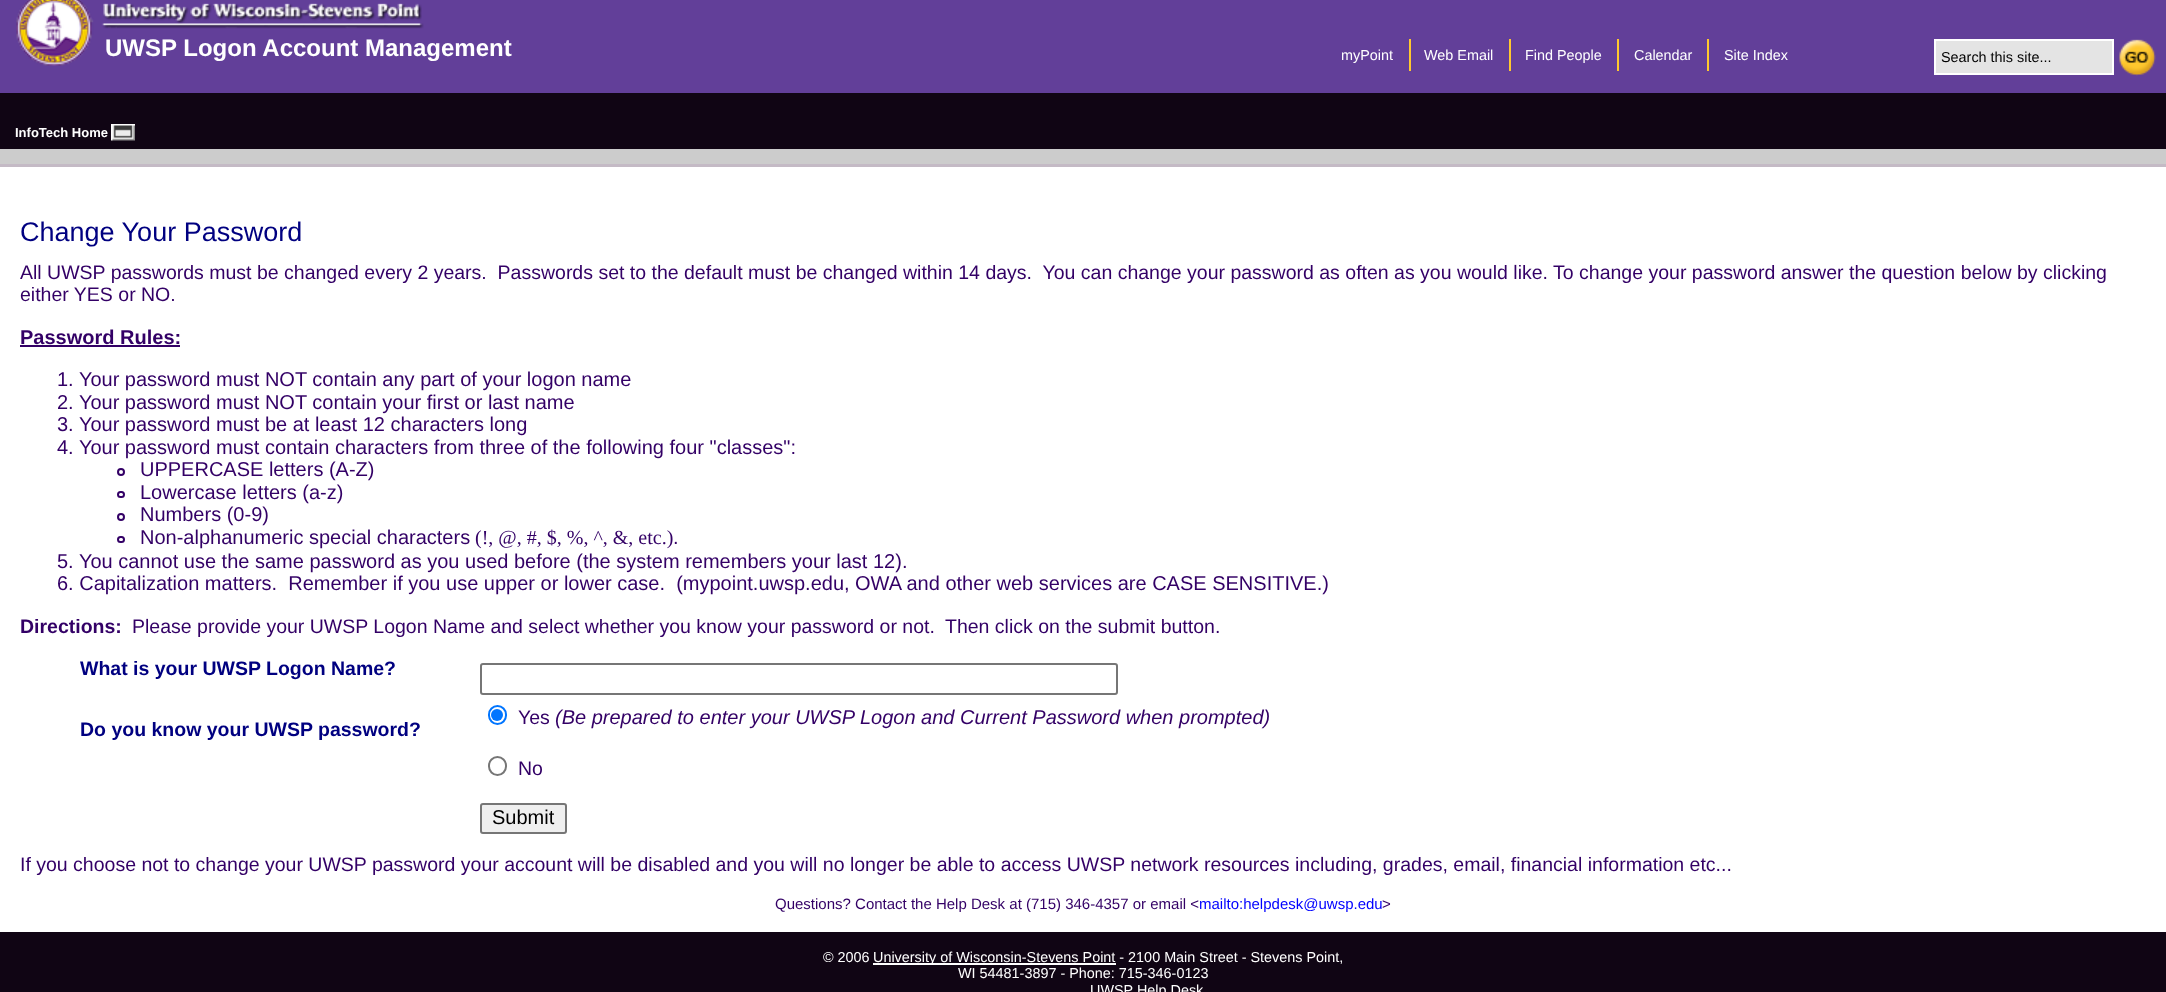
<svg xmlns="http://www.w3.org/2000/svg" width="2166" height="992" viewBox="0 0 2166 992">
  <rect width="100%" height="100%" fill="#623f99"/>
  <image x="16" y="0" width="408" height="66" href="img/1.png"/>
  <path d="M1409 39h2v32H1409z" fill="#ffc82e"/>
  <path d="M1509 39h2v32H1509z" fill="#ffc82e"/>
  <path d="M1617 39h2v32H1617z" fill="#ffc82e"/>
  <path d="M1707 39h2v32H1707z" fill="#ffc82e"/>
  <path d="M1935 40h178v34H1935z" fill="#e4e4e4" stroke="#fff" stroke-width="2"/>
  <image x="2119" y="39" width="37" height="37" href="img/2.png"/>
  <path d="M0 93h2166v56H0z" fill="#100514"/>
  <image x="111" y="124" width="24" height="17" href="img/3.png"/>
  <path d="M0 149h2166v15H0z" fill="#ccc"/>
  <path d="M0 167h2166v765H0z" fill="#fff"/>
  <path d="M0 164h2166v3H0z" fill="#c4bac5"/>
  <path d="M20 345h160v2H20z" fill="#306"/>
  <circle cx="121" cy="472" r="3" fill="none" stroke="#306" stroke-width="2"/>
  <rect x="118" y="492" width="6" height="5" rx="2.5" fill="none" stroke="#306" stroke-width="2"/>
  <circle cx="121" cy="517" r="3" fill="none" stroke="#306" stroke-width="2"/>
  <rect x="118" y="537" width="6" height="5" rx="2.5" fill="none" stroke="#306" stroke-width="2"/>
  <rect x="481" y="664" width="636" height="30" rx="2" fill="none" stroke="#767676" stroke-width="2"/>
  <rect x="489" y="706" width="17" height="18" rx="8.5" fill="none" stroke="#0075ff" stroke-width="2"/>
  <circle cx="497" cy="715" r="6" fill="#0075ff"/>
  <rect x="489" y="757" width="17" height="18" rx="8.5" fill="none" stroke="#767676" stroke-width="2"/>
  <rect x="481" y="804" width="85" height="29" rx="2" fill="#efefef" stroke="#767676" stroke-width="2"/>
  <path d="M0 932h2166v60H0z" fill="#100514"/>
  <path d="M873 963h243v2H873z" fill="#fff"/>
  <text x="105" y="56" font-family="Liberation Sans" font-size="24" font-weight="bold" fill="#fff">UWSP Logon Account Management</text>
  <g font-family="Liberation Sans" font-size="14.4" fill="#fff">
    <text x="1341" y="60">myPoint</text>
    <text x="1424" y="60">Web Email</text>
    <text x="1525" y="60">Find People</text>
    <text x="1634" y="60">Calendar</text>
    <text x="1724" y="60">Site Index</text>
  </g>
  <text x="1941" y="62" font-family="Liberation Sans" font-size="14.4" fill="#000">Search this site...</text>
  <text x="15" y="137" font-family="Liberation Sans" font-size="13" font-weight="bold" fill="#fff">InfoTech Home</text>
  <text x="20" y="241" font-family="Liberation Sans" font-size="27" fill="#000080">Change Your Password</text>
  <g font-family="Liberation Sans" font-size="19.5" fill="#306">
    <text x="20" y="279" xml:space="preserve">All UWSP passwords must be changed every 2 years.  Passwords set to the default must be changed within 14 days.  You can change your password as often as you would like. To change your password answer the question below by clicking</text>
    <text x="20" y="301">either YES or NO.</text>
  </g>
  <text x="20" y="344" font-family="Liberation Sans" font-size="20" font-weight="bold" fill="#306">Password Rules:</text>
  <g font-family="Liberation Sans" font-size="20" fill="#306">
    <text x="57" y="386">1. Your password must NOT contain any part of your logon name</text>
    <text x="57" y="409">2. Your password must NOT contain your first or last name</text>
    <text x="57" y="431">3. Your password must be at least 12 characters long</text>
    <text x="57" y="454">4. Your password must contain characters from three of the following four "classes":</text>
    <text x="140" y="476">UPPERCASE letters (A-Z)</text>
    <text x="140" y="499">Lowercase letters (a-z)</text>
    <text x="140" y="521">Numbers (0-9)</text>
    <text x="140" y="544">Non-alphanumeric special characters</text>
  </g>
  <text x="475" y="544" font-family="Liberation Serif" font-size="20" fill="#306">(!, @, #, $, %, ^, &amp;, etc.)</text>
  <g font-family="Liberation Sans" font-size="20" fill="#306">
    <text x="673" y="544">.</text>
    <text x="57" y="568">5. You cannot use the same password as you used before (the system remembers your last 12).</text>
    <text x="57" y="590" xml:space="preserve">6. Capitalization matters.  Remember if you use upper or lower case.  (mypoint.uwsp.edu,</text>
    <text x="855" y="590">OWA and other web services are CASE SENSITIVE.)</text>
  </g>
  <text x="20" y="633" font-family="Liberation Sans" font-size="19.5" font-weight="bold" fill="#306">Directions:</text>
  <g font-family="Liberation Sans" font-size="19.5" fill="#306">
    <text x="132" y="633">Please provide your UWSP Logon Name and select whether you know your password or not.</text>
    <text x="945" y="633">Then click on the submit button.</text>
  </g>
  <g font-family="Liberation Sans" font-size="19.5" font-weight="bold" fill="#000080">
    <text x="80" y="675">What is your UWSP Logon Name?</text>
    <text x="80" y="736">Do you know your UWSP password?</text>
  </g>
  <text x="518" y="724" font-family="Liberation Sans" font-size="19.5" fill="#306">Yes</text>
  <text x="555" y="724" font-family="Liberation Sans" font-size="20" font-style="italic" fill="#306">(Be prepared to enter your UWSP Logon and Current Password when prompted)</text>
  <text x="518" y="775" font-family="Liberation Sans" font-size="19.5" fill="#306">No</text>
  <text x="492" y="824" font-family="Liberation Sans" font-size="20" fill="#000">Submit</text>
  <text x="20" y="871" font-family="Liberation Sans" font-size="19.5" fill="#306">If you choose not to change your UWSP password your account will be disabled and you will no longer be able to access UWSP network resources including, grades, email, financial information etc...</text>
  <text x="775" y="909" font-family="Liberation Sans" font-size="15" fill="#306">Questions? Contact the Help Desk at (715) 346-4357 or email &lt;</text>
  <text x="1199" y="909" font-family="Liberation Sans" font-size="15" fill="#00f">mailto:helpdesk@uwsp.edu</text>
  <text x="1382" y="909" font-family="Liberation Sans" font-size="15" fill="#306">&gt;</text>
  <g font-family="Liberation Sans" font-size="14.4" fill="#fff">
    <text x="823" y="962">© 2006</text>
    <text x="873" y="962">University of Wisconsin-Stevens Point - 2100 Main Street - Stevens Point,</text>
    <text x="958" y="978">WI 54481-3897 - Phone: 715-346-0123</text>
    <text x="1090" y="995">UWSP Help Desk</text>
  </g>
</svg>
